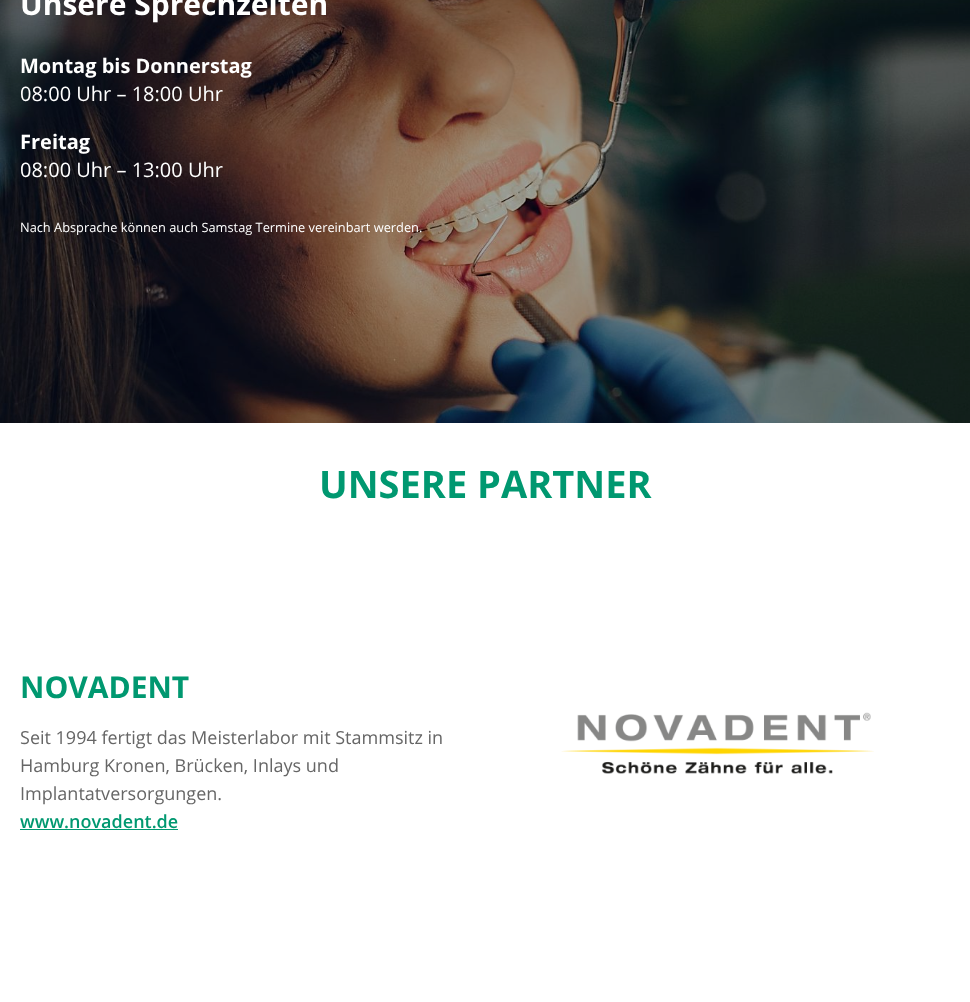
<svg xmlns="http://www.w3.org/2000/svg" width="970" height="1002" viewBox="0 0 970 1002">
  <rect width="100%" height="100%" fill="#fff"/>
  <image x="0" y="0" width="970" height="423" href="img/1.png"/>
  <path d="M20 829h158v1H20z" fill="#009870"/>
  <image x="561" y="712" width="313" height="62" href="img/2.png"/>
  <text x="20" y="15" font-family="Open Sans" font-size="30" font-weight="bold" fill="#fff">Unsere Sprechzeiten</text>
  <text x="20" y="73" font-family="Open Sans" font-size="20" font-weight="bold" fill="#fff">Montag bis Donnerstag</text>
  <text x="20" y="101" font-family="Open Sans" font-size="20" fill="#fff">08:00 Uhr – 18:00 Uhr</text>
  <text x="20" y="149" font-family="Open Sans" font-size="20" font-weight="bold" fill="#fff">Freitag</text>
  <text x="20" y="177" font-family="Open Sans" font-size="20" fill="#fff">08:00 Uhr – 13:00 Uhr</text>
  <text x="20" y="232" font-family="Open Sans" font-size="12.8" fill="#fff">Nach Absprache können auch Samstag Termine vereinbart werden.</text>
  <text x="319" y="498" font-family="Open Sans" font-size="38" font-weight="bold" fill="#009870">UNSERE PARTNER</text>
  <text x="20" y="698" font-family="Open Sans" font-size="30" font-weight="bold" fill="#009870">NOVADENT</text>
  <g font-family="Open Sans" font-size="18" fill="#666">
    <text x="20" y="744">Seit 1994 fertigt das Meisterlabor mit Stammsitz in</text>
    <text x="20" y="772">Hamburg Kronen, Brücken, Inlays und</text>
    <text x="20" y="800">Implantatversorgungen.</text>
  </g>
  <text x="20" y="828" font-family="Open Sans" font-size="18" font-weight="600" fill="#009870">www.novadent.de</text>
</svg>
